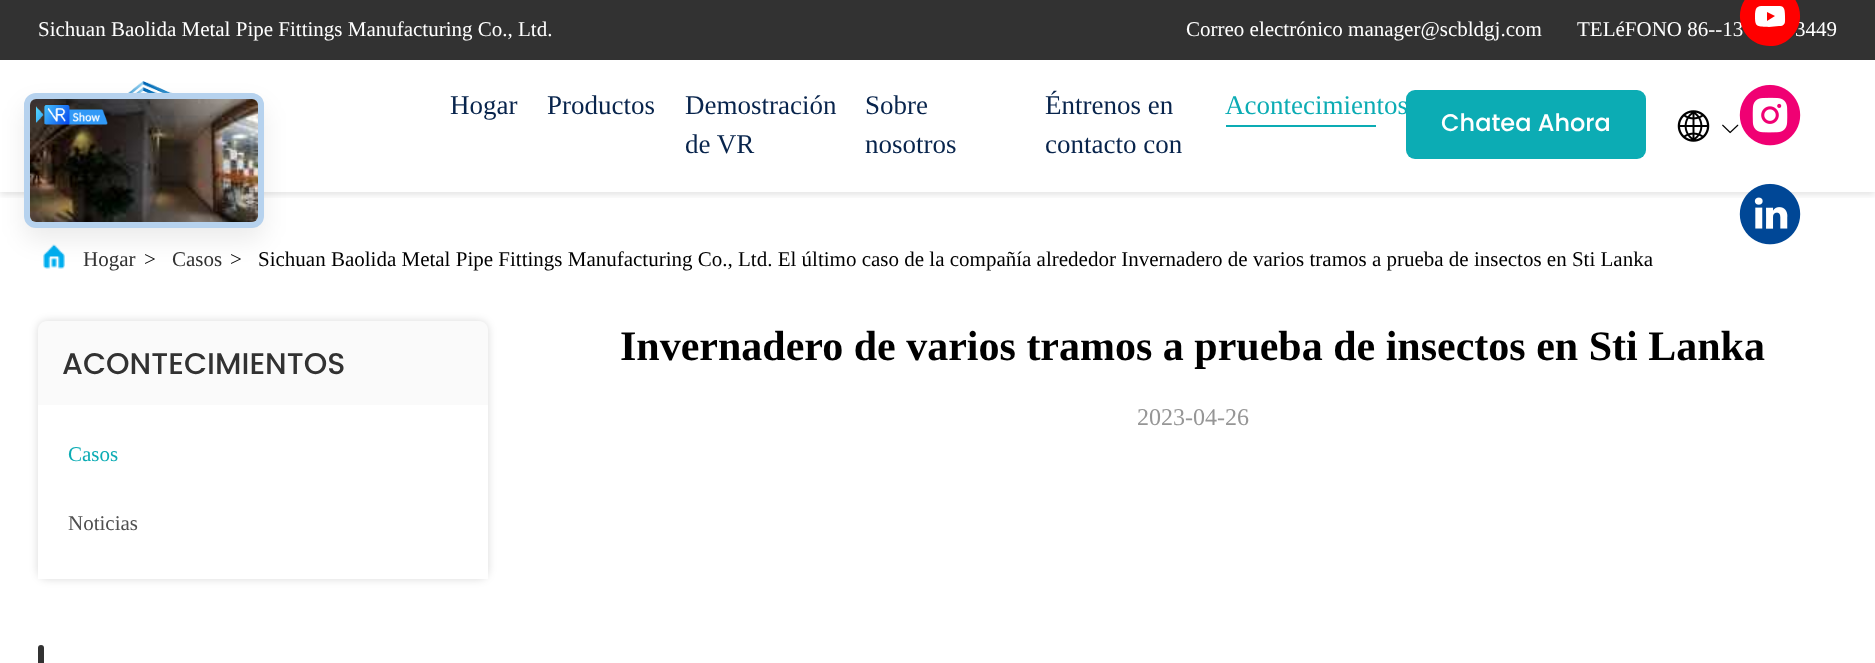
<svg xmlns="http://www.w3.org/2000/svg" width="1875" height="663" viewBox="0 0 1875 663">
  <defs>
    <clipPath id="clip1"><path d="M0 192h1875v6H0z"/></clipPath>
  </defs>
  <rect width="100%" height="100%" fill="#fff"/>
  <path d="M0 0h1875v60H0z" fill="#323232"/>
  <circle cx="1768.5" cy="15.5" r="22.5" fill="#fff"/>
  <g clip-path="url(#clip1)">
    <path d="M0 63h1875v132H0z" fill="#0000001a" filter="blur(3px)"/>
  </g>
  <image x="1783" y="141" width="1" height="1" href="img/6.png"/>
  <image x="1739" y="84" width="62" height="62" href="img/1.png"/>
  <circle cx="1768.5" cy="213.5" r="22.5" fill="#fff"/>
  <image x="1739" y="183" width="62" height="62" href="img/2.png"/>
  <image x="108" y="81" width="99" height="12" href="img/3.png"/>
  <path d="M1226 125h150v2H1226z" fill="#0cacb4"/>
  <rect x="1406" y="90" width="240" height="69" rx="9" fill="#0cacb4"/>
  <image x="1677" y="110" width="33" height="32" href="img/4.png"/>
  <image x="1722" y="124" width="17" height="10" href="img/5.png"/>
  <image x="43" y="244" width="22" height="25" href="img/9.png"/>
  <rect x="24" y="105" width="240" height="135" rx="12" fill="#00000014" filter="blur(12px)"/>
  <rect x="24" y="93" width="240" height="135" rx="12" fill="#eee"/>
  <rect x="27" y="96" width="234" height="129" rx="9" fill="none" stroke="#0478ed3d" stroke-width="6"/>
  <image x="30" y="99" width="228" height="123" href="img/7.png"/>
  <image x="36" y="105" width="72" height="20" href="img/8.png"/>
  <rect x="38" y="321" width="450" height="258" rx="9" fill="#00000026" filter="blur(4.5px)"/>
  <path d="M47 321H479C484 321 488 325 488 330V405H38V330C38 325 42 321 47 321Z" fill="#fafafa"/>
  <path d="M38 405h450v174H38z" fill="#fff"/>
  <rect x="38" y="645" width="6" height="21" rx="3" fill="#323232"/>
  <g font-family="Liberation Serif" font-size="21" fill="#fff">
    <text x="38" y="36">Sichuan Baolida Metal Pipe Fittings Manufacturing Co., Ltd.</text>
    <text x="1186" y="36">Correo electrónico manager@scbldgj.com</text>
    <text x="1577" y="36">TELéFONO 86--13</text>
    <text x="1795" y="36">3449</text>
  </g>
  <path d="M1770-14C1799-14 1811 23 1788 40C1783 44 1777 46 1770 46C1741 46 1729 10 1752-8C1757-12 1763-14 1770-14ZM1771 6C1758 6 1755 4 1755 17C1755 28 1758 26 1769 27L1779 26C1786 26 1785 22 1785 16C1785 4 1782 6 1771 6ZM1767 12L1775 16L1767 21Z" fill="#f00"/>
  <g font-family="Liberation Serif" font-size="27" fill="#08244c">
    <text x="450" y="114">Hogar</text>
    <text x="547" y="114">Productos</text>
    <text x="685" y="114">Demostración</text>
    <text x="685" y="153">de VR</text>
    <text x="865" y="114">Sobre</text>
    <text x="865" y="153">nosotros</text>
    <text x="1045" y="114">Éntrenos en</text>
    <text x="1045" y="153">contacto con</text>
  </g>
  <text x="1225" y="114" font-family="Liberation Serif" font-size="27" fill="#0cacb4">Acontecimientos</text>
  <text x="1441" y="131" font-family="Poppins" font-size="24" font-weight="500" fill="#fff">Chatea Ahora</text>
  <text x="83" y="266" font-family="Liberation Serif" font-size="21" fill="#323232">Hogar</text>
  <text x="144" y="266" font-family="Liberation Serif" font-size="21" fill="#000">&gt;</text>
  <text x="172" y="266" font-family="Liberation Serif" font-size="21" fill="#323232">Casos</text>
  <g font-family="Liberation Serif" font-size="21" fill="#000">
    <text x="230" y="266">&gt;</text>
    <text x="258" y="266">Sichuan Baolida Metal Pipe Fittings Manufacturing Co., Ltd. El último caso de la compañía alrededor Invernadero de varios tramos a prueba de insectos en Sti Lanka</text>
  </g>
  <text x="62" y="374" font-family="Poppins" font-size="30" font-weight="500" fill="#323232">ACONTECIMIENTOS</text>
  <text x="68" y="461" font-family="Liberation Serif" font-size="21" fill="#0cacb4">Casos</text>
  <text x="68" y="530" font-family="Liberation Serif" font-size="21" fill="#505050">Noticias</text>
  <text x="620" y="360" font-family="Liberation Serif" font-size="42" font-weight="bold" fill="#000">Invernadero de varios tramos a prueba de insectos en Sti Lanka</text>
  <text x="1137" y="425" font-family="Liberation Serif" font-size="24" fill="#969696">2023-04-26</text>
</svg>
